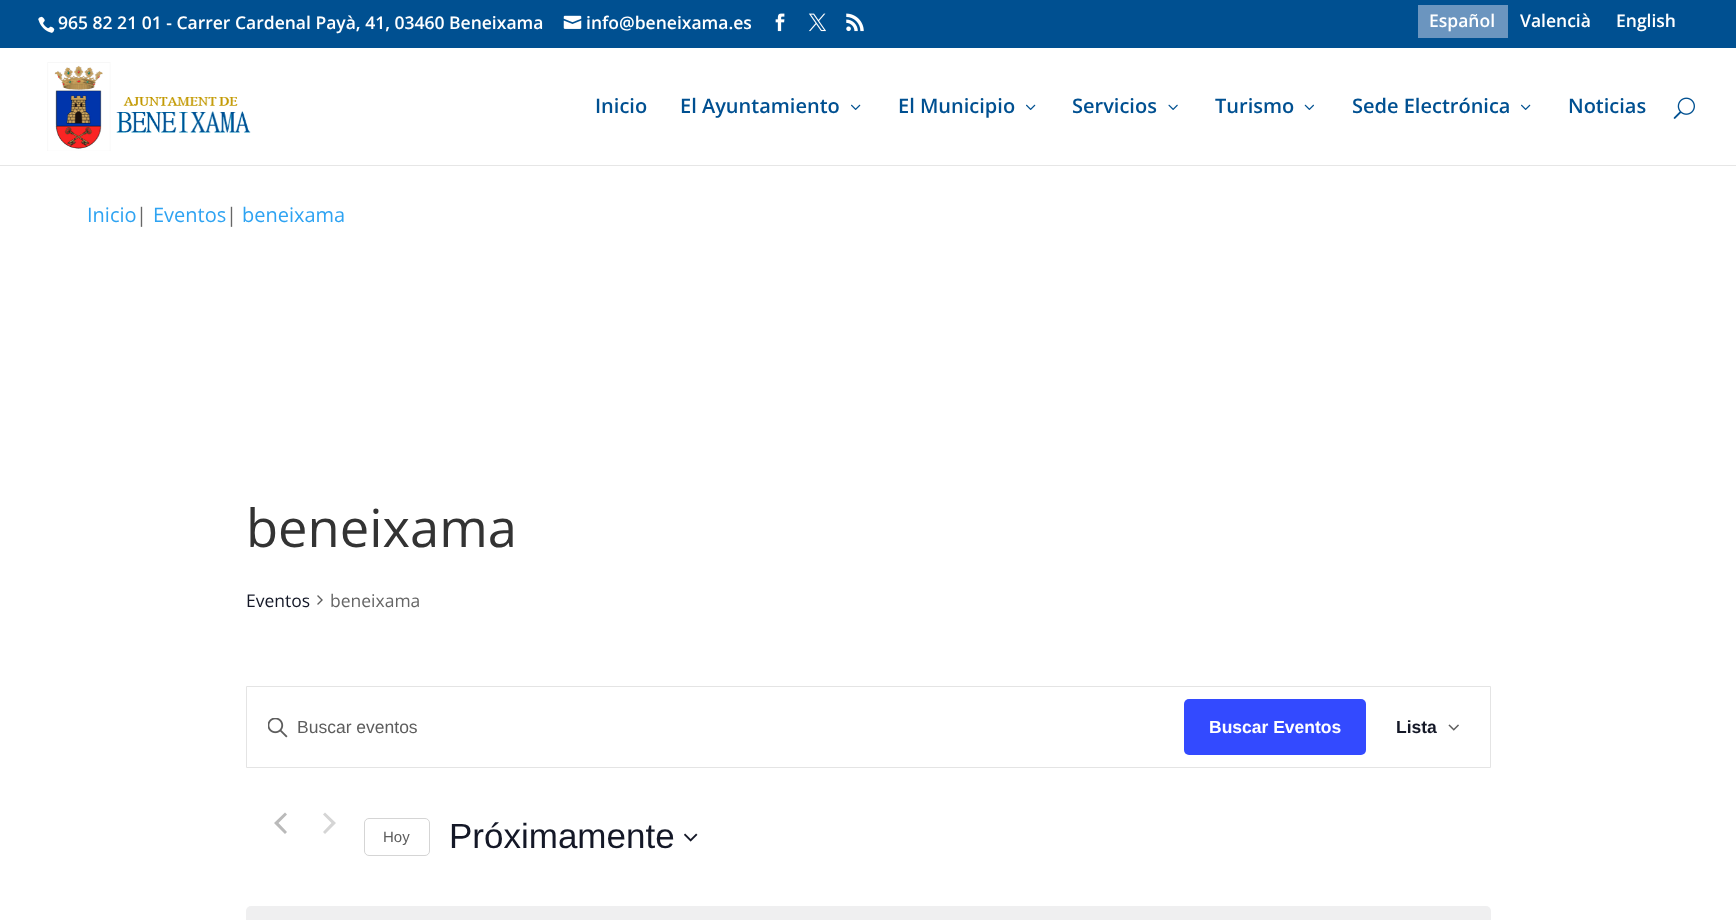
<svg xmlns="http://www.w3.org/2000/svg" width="1736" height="920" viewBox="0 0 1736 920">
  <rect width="100%" height="100%" fill="#fff"/>
  <path d="M0 0h1736v48H0z" fill="#005091"/>
  <image x="38" y="16" width="17" height="17" href="img/1.png"/>
  <image x="563" y="15" width="19" height="14" href="img/2.png"/>
  <image x="775" y="13" width="10" height="19" href="img/3.png"/>
  <image x="808" y="13" width="18" height="19" href="img/4.png"/>
  <image x="846" y="13" width="18" height="19" href="img/5.png"/>
  <path d="M1418 5h90v33H1418z" fill="#6b95bf"/>
  <path d="M0 165h1736v1H0z" fill="#e6e6e6"/>
  <image x="47" y="62" width="204" height="89" href="img/6.png"/>
  <image x="851" y="104" width="10" height="6" href="img/7.png"/>
  <image x="1026" y="104" width="10" height="6" href="img/7.png"/>
  <image x="1168" y="104" width="10" height="6" href="img/8.png"/>
  <image x="1304" y="104" width="10" height="6" href="img/9.png"/>
  <image x="1521" y="104" width="10" height="6" href="img/7.png"/>
  <image x="1673" y="97" width="22" height="22" href="img/10.png"/>
  <image x="317" y="595" width="6" height="10" href="img/11.png"/>
  <path d="M246.5 686.5h1244v81H246.5z" fill="none" stroke="#e4e4e4"/>
  <image x="268" y="718" width="20" height="20" href="img/12.png"/>
  <rect x="1184" y="699" width="182" height="56" rx="5" fill="#334aff"/>
  <image x="1448" y="724" width="11" height="7" href="img/13.png"/>
  <path d="M287 832L285 834L274 823L285 812.5L287 814.5L278.5 823Z" fill="#bababa"/>
  <path d="M323 814.5L325 812.5L336 823L325 834L323 832L331.5 823Z" fill="#d5d5d5"/>
  <rect x="364.5" y="818.5" width="65" height="37" rx="4.5" fill="none" stroke="#d5d5d5"/>
  <image x="684" y="833" width="14" height="9" href="img/14.png"/>
  <rect x="246" y="906" width="1245" height="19" rx="5" fill="#efeff0"/>
  <g font-family="Open Sans" font-size="17.5" font-weight="600" fill="#fff">
    <text x="58" y="29">965 82 21 01 - Carrer Cardenal Payà, 41, 03460 Beneixama</text>
    <text x="586" y="29">info@beneixama.es</text>
    <text x="1429" y="27">Español</text>
    <text x="1520" y="27">Valencià</text>
    <text x="1616" y="27">English</text>
  </g>
  <g font-family="Open Sans" font-size="20" font-weight="600" fill="#005091">
    <text x="595" y="113">Inicio</text>
    <text x="680" y="113">El Ayuntamiento</text>
    <text x="898" y="113">El Municipio</text>
    <text x="1072" y="113">Servicios</text>
    <text x="1215" y="113">Turismo</text>
    <text x="1352" y="113">Sede Electrónica</text>
    <text x="1568" y="113">Noticias</text>
  </g>
  <text x="87" y="222" font-family="Open Sans" font-size="20" fill="#2ea3f2">Inicio</text>
  <text x="136" y="222" font-family="Open Sans" font-size="20" fill="#666">|</text>
  <text x="153" y="222" font-family="Open Sans" font-size="20" fill="#2ea3f2">Eventos</text>
  <text x="226" y="222" font-family="Open Sans" font-size="20" fill="#666">|</text>
  <text x="242" y="222" font-family="Open Sans" font-size="20" fill="#2ea3f2">beneixama</text>
  <text x="246" y="547" font-family="Open Sans" font-size="52.5" fill="#333">beneixama</text>
  <text x="246" y="607" font-family="Open Sans" font-size="17.5" fill="#141827">Eventos</text>
  <text x="330" y="607" font-family="Open Sans" font-size="17.5" fill="#666">beneixama</text>
  <text x="297" y="733" font-family="Liberation Sans" font-size="17.5" fill="#5d5d5d">Buscar eventos</text>
  <text x="1209" y="733" font-family="Liberation Sans" font-size="17.5" font-weight="bold" fill="#fff">Buscar Eventos</text>
  <text x="1396" y="733" font-family="Liberation Sans" font-size="17.5" font-weight="bold" fill="#141827">Lista</text>
  <text x="383" y="842" font-family="Liberation Sans" font-size="15" fill="#5d5d5d">Hoy</text>
  <text x="449" y="848" font-family="Liberation Sans" font-size="35" fill="#141827">Próximamente</text>
</svg>
